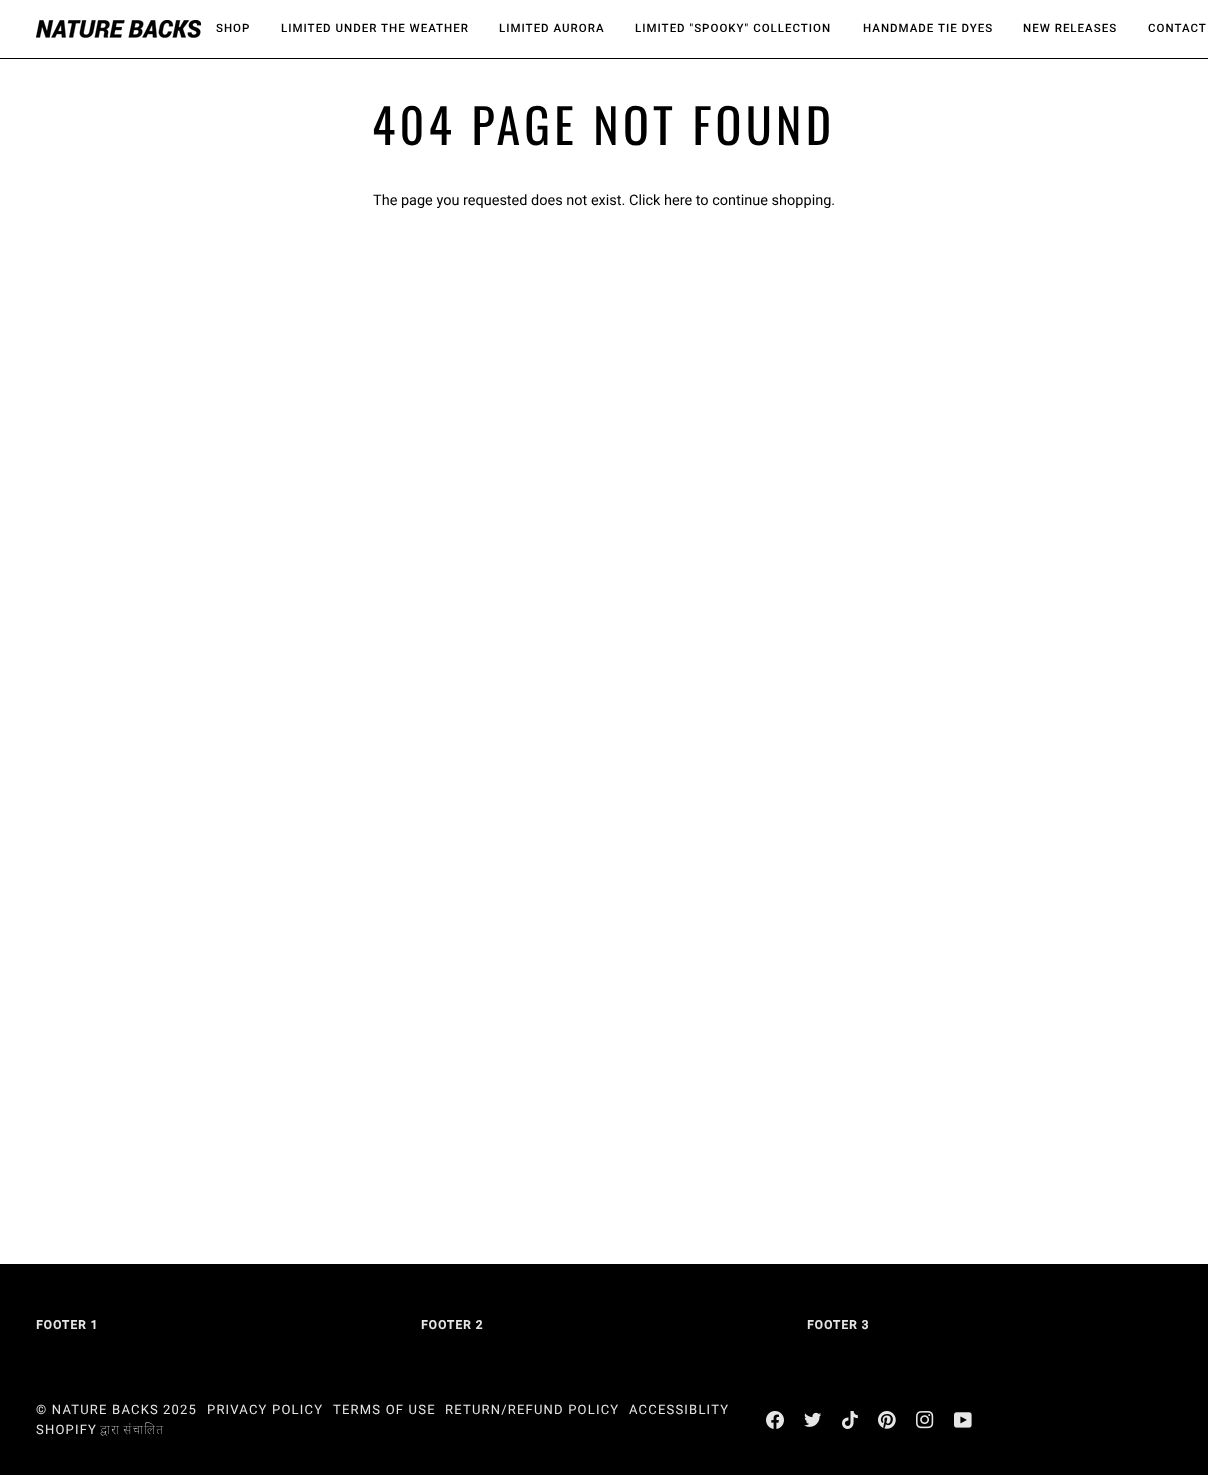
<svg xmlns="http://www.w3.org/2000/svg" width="1208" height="1475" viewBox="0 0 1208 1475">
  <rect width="100%" height="100%" fill="#fff"/>
  <path d="M0 58h1208v1H0z" fill="#000"/>
  <image x="36" y="20" width="165" height="18" href="img/1.png"/>
  <path d="M0 1264h1208v211H0z" fill="#000"/>
  <image x="766" y="1411" width="18" height="18" href="img/2.png"/>
  <image x="804" y="1412" width="18" height="15" href="img/3.png"/>
  <image x="842" y="1411" width="16" height="18" href="img/4.png"/>
  <image x="878" y="1411" width="18" height="18" href="img/5.png"/>
  <image x="916" y="1411" width="18" height="18" href="img/6.png"/>
  <image x="954" y="1412" width="18" height="16" href="img/7.png"/>
  <g font-family="Roboto" font-size="11.5" font-weight="500" letter-spacing="1" fill="#000">
    <text x="216" y="32">SHOP</text>
    <text x="281" y="32">LIMITED UNDER THE WEATHER</text>
    <text x="499" y="32">LIMITED AURORA</text>
    <text x="635" y="32">LIMITED "SPOOKY" COLLECTION</text>
    <text x="863" y="32">HANDMADE TIE DYES</text>
    <text x="1023" y="32">NEW RELEASES</text>
    <text x="1148" y="32">CONTACT</text>
  </g>
  <text x="372" y="145" font-family="Oswald" font-size="48" letter-spacing="4.3" fill="#000">404 PAGE NOT FOUND</text>
  <text x="373" y="205" font-family="Roboto" font-size="14.5" fill="#000">The page you requested does not exist. Click here to continue shopping.</text>
  <g font-family="Roboto" font-size="12" font-weight="bold" letter-spacing="1" fill="#e6e6e6">
    <text x="36" y="1329">FOOTER 1</text>
    <text x="421" y="1329">FOOTER 2</text>
    <text x="807" y="1329">FOOTER 3</text>
  </g>
  <g font-family="Roboto" font-size="13" letter-spacing="1.2" fill="#e6e6e6">
    <text x="36" y="1414">© NATURE BACKS</text>
    <text x="163" y="1414">2025</text>
    <text x="207" y="1414">PRIVACY POLICY</text>
    <text x="333" y="1414">TERMS OF USE</text>
    <text x="445" y="1414">RETURN/REFUND POLICY</text>
    <text x="629" y="1414">ACCESSIBLITY</text>
    <text x="36" y="1434">SHOPIFY</text>
  </g>
  <text x="100" y="1434" word-spacing="-1" font-family="Noto Sans" font-size="13" font-weight="100" letter-spacing="1.2" fill="#e6e6e6">द्वारा संचालित</text>
</svg>
